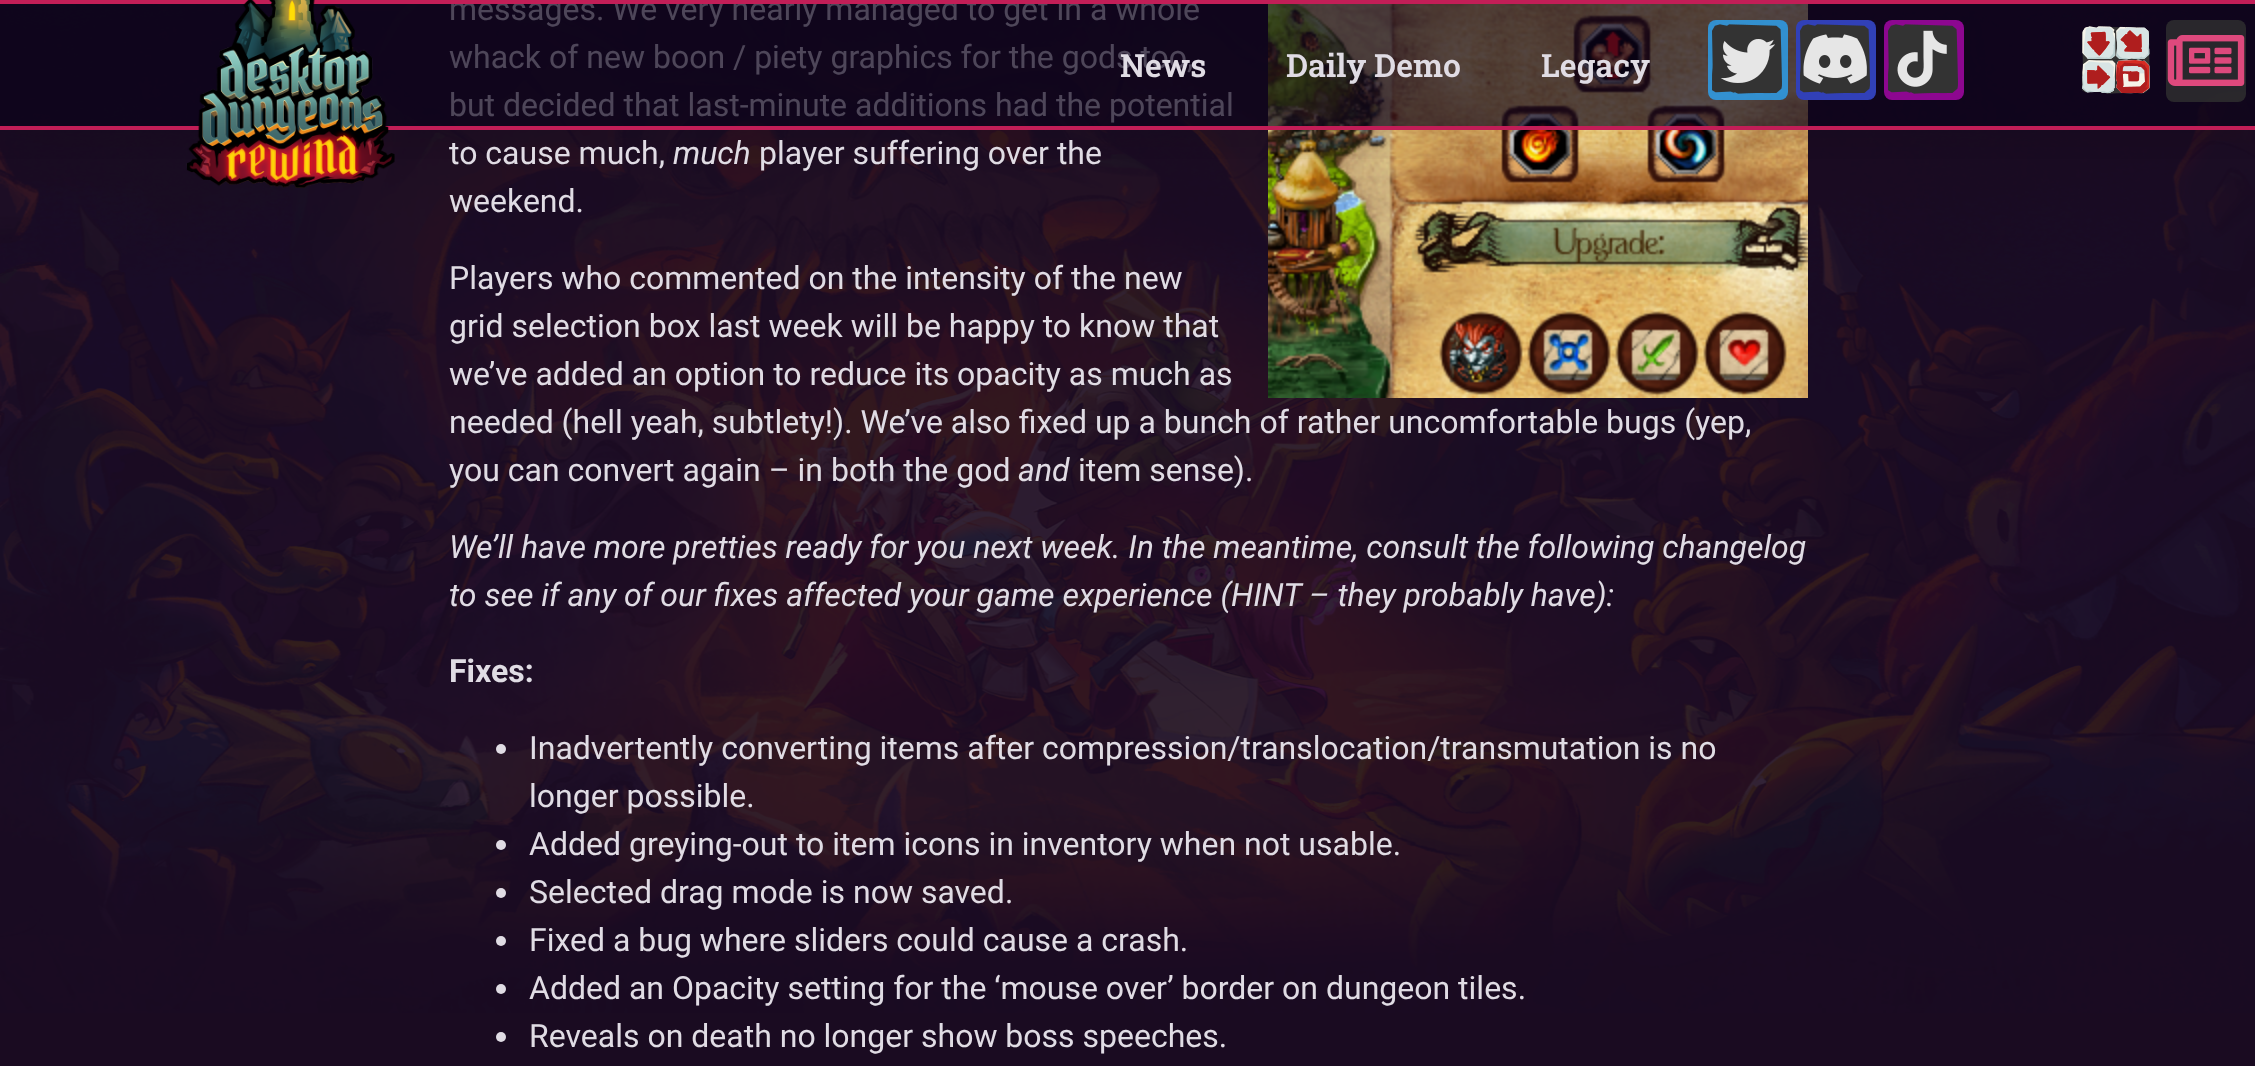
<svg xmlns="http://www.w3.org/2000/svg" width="2255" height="1066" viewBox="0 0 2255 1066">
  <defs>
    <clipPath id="clip1"><path d="M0 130h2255v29H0z"/></clipPath>
  </defs>
  <rect width="100%" height="100%" fill="#1a0b21"/>
  <image x="0" y="4" width="2255" height="1009" href="img/1.png"/>
  <image x="1268" y="4" width="540" height="394" href="img/2.png"/>
  <circle cx="501" cy="749" r="5" fill="#e0dce4"/>
  <circle cx="501" cy="845" r="5" fill="#e0dce4"/>
  <circle cx="501" cy="893" r="5" fill="#e0dce4"/>
  <circle cx="501" cy="941" r="5" fill="#e0dce4"/>
  <circle cx="501" cy="989" r="5" fill="#e0dce4"/>
  <circle cx="501" cy="1037" r="5" fill="#e0dce4"/>
  <g clip-path="url(#clip1)">
    <path d="M-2 6h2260v134H-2z" fill="#00000012" filter="blur(33px)"/>
  </g>
  <path d="M0 126h2255v4H0z" fill="#c21e57"/>
  <g font-family="Roboto" font-size="32" fill="#e0dce4">
    <text x="449" y="20">messages. We very nearly managed to get in a whole</text>
    <text x="449" y="68">whack of new boon / piety graphics for the gods too,</text>
    <text x="449" y="116">but decided that last-minute additions had the potential</text>
    <text x="449" y="164">to cause much,</text>
  </g>
  <text x="673" y="164" font-family="Roboto" font-size="32" font-style="italic" fill="#e0dce4">much</text>
  <g font-family="Roboto" font-size="32" fill="#e0dce4">
    <text x="759" y="164">player suffering over the</text>
    <text x="449" y="212">weekend.</text>
    <text x="449" y="289">Players who commented on the intensity of the new</text>
    <text x="449" y="337">grid selection box last week will be happy to know that</text>
    <text x="449" y="385">we’ve added an option to reduce its opacity as much as</text>
    <text x="449" y="433">needed (hell yeah, subtlety!). We’ve also fixed up a bunch of rather uncomfortable bugs (yep,</text>
    <text x="449" y="481">you can convert again – in both the god</text>
  </g>
  <text x="1018" y="481" font-family="Roboto" font-size="32" font-style="italic" fill="#e0dce4">and</text>
  <text x="1078" y="481" font-family="Roboto" font-size="32" fill="#e0dce4">item sense).</text>
  <g font-family="Roboto" font-size="32" font-style="italic" fill="#e0dce4">
    <text x="449" y="558">We’ll have more pretties ready for you next week. In the meantime, consult the following changelog</text>
    <text x="449" y="606">to see if any of our fixes affected your game experience (HINT – they probably have):</text>
  </g>
  <text x="449" y="682" font-family="Roboto" font-size="32" font-weight="bold" fill="#e0dce4">Fixes:</text>
  <g font-family="Roboto" font-size="32" fill="#e0dce4">
    <text x="529" y="759">Inadvertently converting items after compression/translocation/transmutation is no</text>
    <text x="529" y="807">longer possible.</text>
    <text x="529" y="855">Added greying-out to item icons in inventory when not usable.</text>
    <text x="529" y="903">Selected drag mode is now saved.</text>
    <text x="529" y="951">Fixed a bug where sliders could cause a crash.</text>
    <text x="529" y="999">Added an Opacity setting for the ‘mouse over’ border on dungeon tiles.</text>
    <text x="529" y="1047">Reveals on death no longer show boss speeches.</text>
  </g>
  <path d="M0 4h2255v122H0z" fill="#0c031ab0"/>
  <path d="M0 0h2255v4H0z" fill="#c21e57"/>
  <image x="186" y="0" width="209" height="188" href="img/3.png"/>
  <g font-family="Roboto Slab" font-size="32" font-weight="600" fill="#e0dce4">
    <text x="1120" y="77">News</text>
    <text x="1286" y="77">Daily Demo</text>
    <text x="1541" y="77">Legacy</text>
  </g>
  <rect x="1708" y="20" width="80" height="80" rx="8" fill="#2aa7fac7"/>
  <image x="1712" y="24" width="70" height="70" href="img/4.png"/>
  <rect x="1796" y="20" width="80" height="80" rx="8" fill="#3140b8"/>
  <image x="1800" y="24" width="70" height="70" href="img/5.png"/>
  <rect x="1884" y="20" width="80" height="80" rx="8" fill="#8d0790"/>
  <image x="1888" y="24" width="70" height="70" href="img/6.png"/>
  <image x="2082" y="26" width="68" height="68" href="img/7.png"/>
  <rect x="2166" y="20" width="80" height="82" rx="8" fill="#2f3030d1"/>
  <image x="2167" y="35" width="78" height="51" href="img/8.png"/>
</svg>
